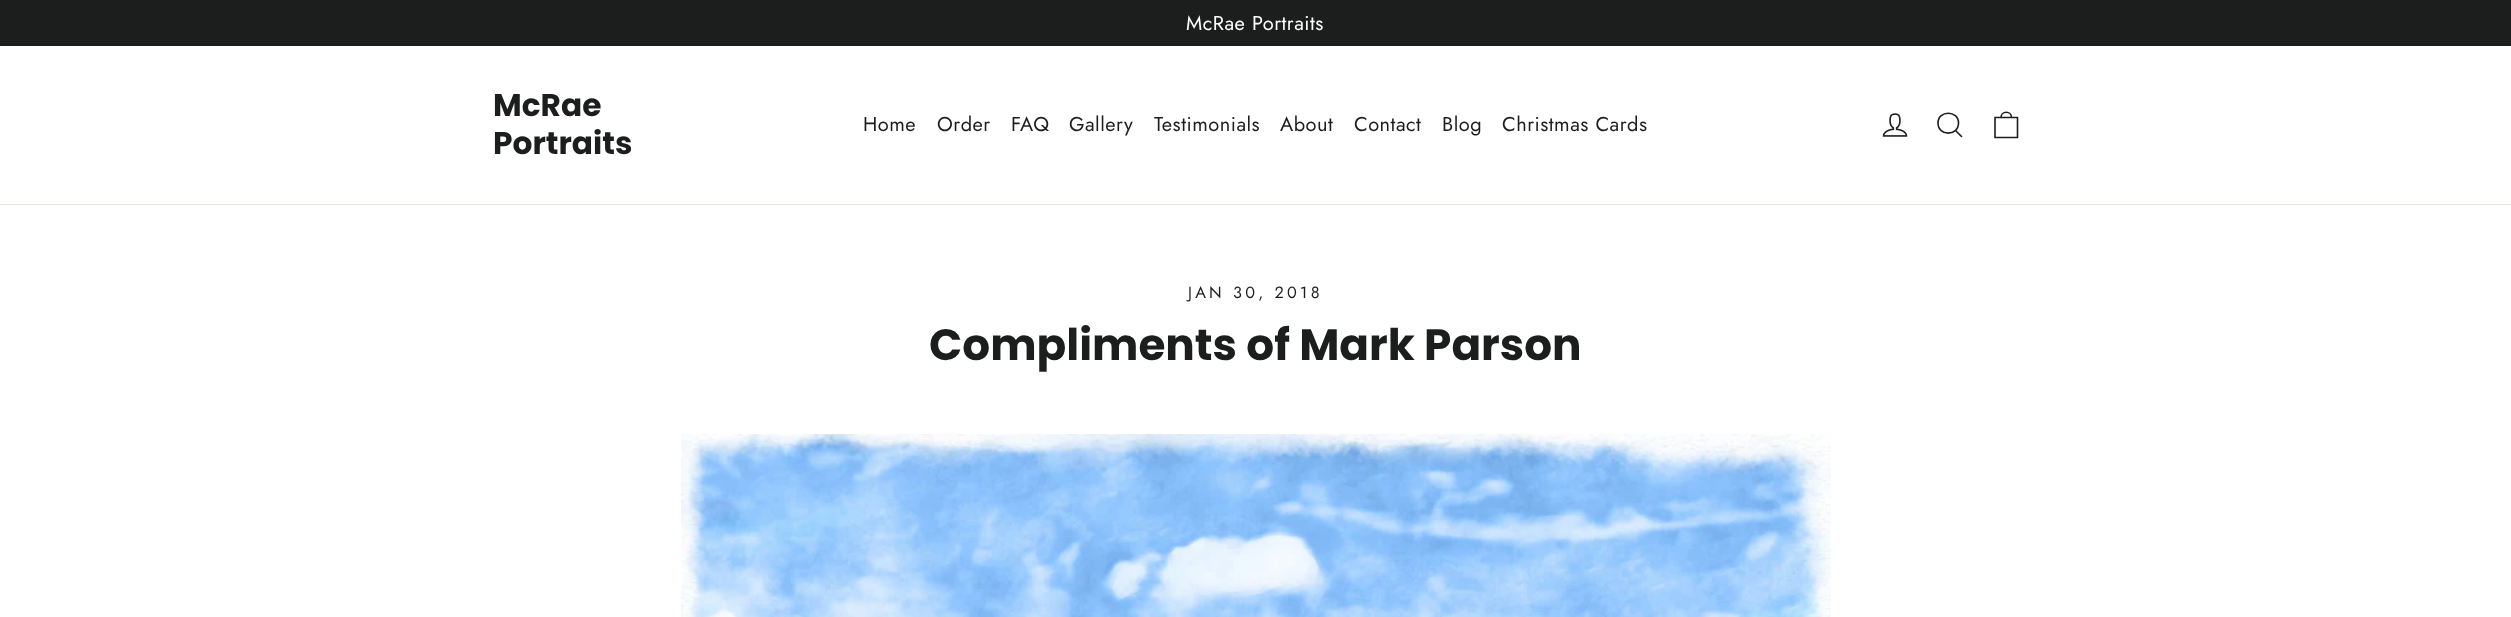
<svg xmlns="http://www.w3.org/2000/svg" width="2511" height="617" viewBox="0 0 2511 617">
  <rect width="100%" height="100%" fill="#fff"/>
  <path d="M0 0h2511v46H0z" fill="#1c1d1d"/>
  <path d="M0 204h2511v1H0z" fill="#e8e8e1"/>
  <image x="1882" y="113" width="26" height="24" href="img/1.png"/>
  <path d="M1958.5 123C1958.5 136.5 1938 136.5 1938 123C1938 110 1958.5 110 1958.5 123ZM1962 137L1955.5 130.5" fill="none" stroke="#1c1d1d" stroke-width="1.6"/>
  <path d="M1995 117.5H2017.5V137.5H1995ZM2001 117.5C2001 110.5 2011.5 110.5 2011.5 117.5" fill="none" stroke="#1c1d1d" stroke-width="1.6"/>
  <image x="681" y="434" width="1150" height="183" href="img/2.png"/>
  <text x="1186" y="30" font-family="Jost" font-size="20" letter-spacing="0.5" fill="#fff">McRae Portraits</text>
  <g font-family="Poppins" font-size="31.25" font-weight="bold" fill="#1c1d1d">
    <text x="493" y="116">McRae</text>
    <text x="493" y="154">Portraits</text>
  </g>
  <g font-family="Jost" font-size="20" letter-spacing="0.5" fill="#1c1d1d">
    <text x="863" y="131">Home</text>
    <text x="937" y="131">Order</text>
    <text x="1011" y="131">FAQ</text>
    <text x="1069" y="131">Gallery</text>
    <text x="1154" y="131">Testimonials</text>
    <text x="1280" y="131">About</text>
    <text x="1354" y="131">Contact</text>
    <text x="1442" y="131">Blog</text>
    <text x="1502" y="131">Christmas Cards</text>
  </g>
  <text x="1188" y="298" font-family="Jost" font-size="16.25" letter-spacing="3.25" fill="#1c1d1d">JAN 30, 2018</text>
  <text x="929" y="360" font-family="Poppins" font-size="43.75" font-weight="bold" fill="#1c1d1d">Compliments of Mark Parson</text>
</svg>
